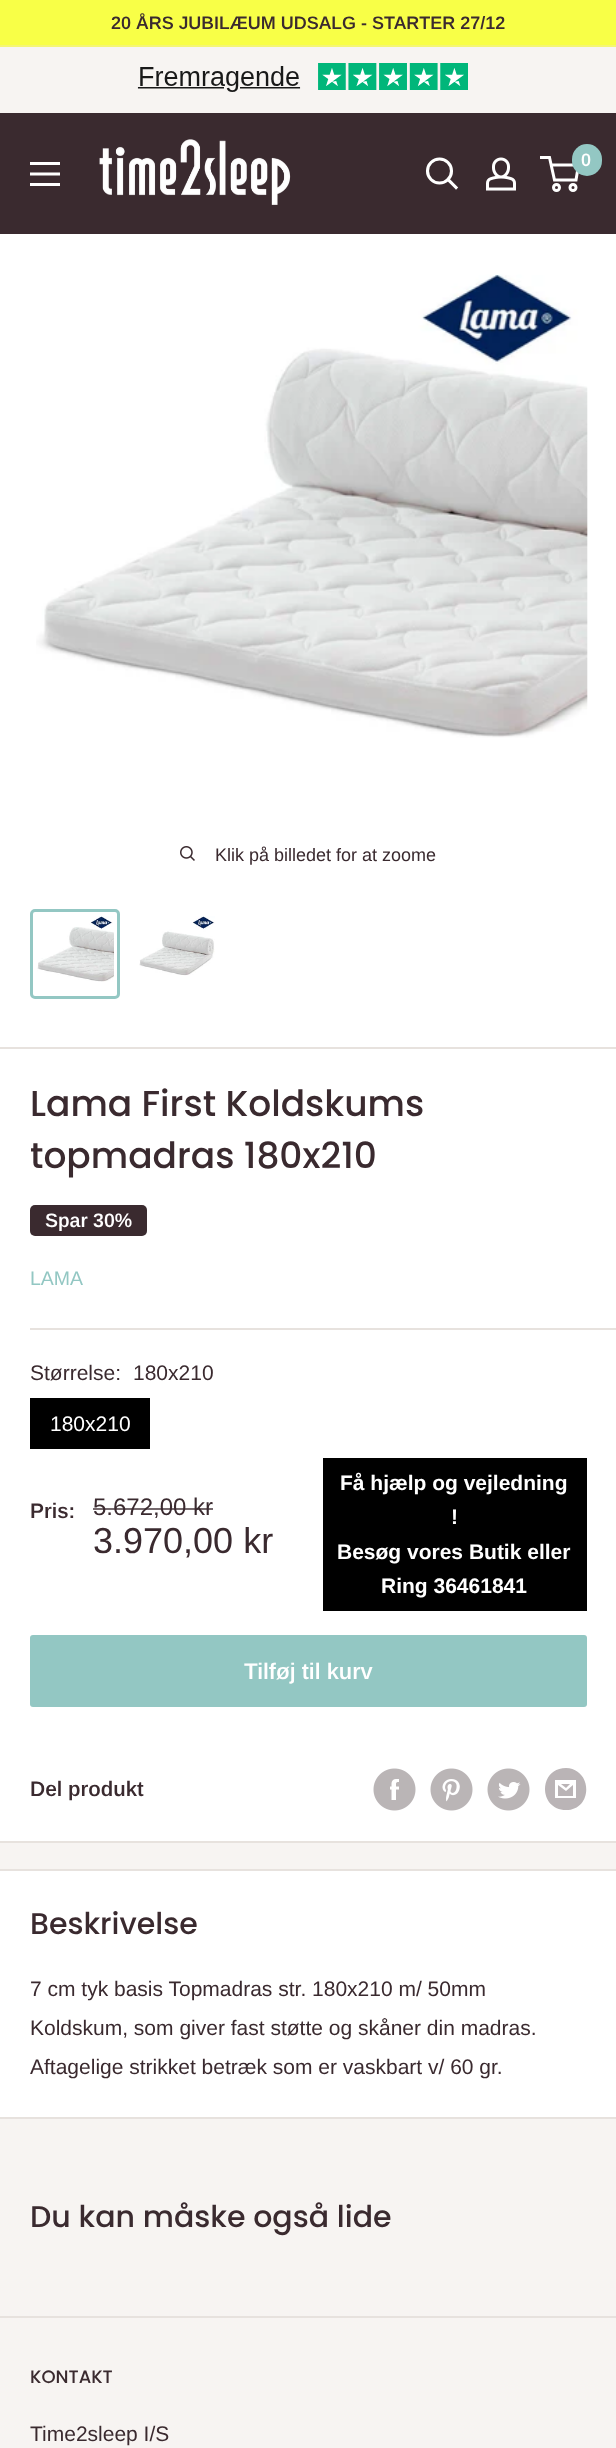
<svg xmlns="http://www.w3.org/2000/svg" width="616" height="2448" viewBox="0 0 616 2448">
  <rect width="100%" height="100%" fill="#f7f4f2"/>
  <path d="M0 0h616v45H0z" fill="#f8ff47"/>
  <path d="M0 45h616v2H0z" fill="#f4f674"/>
  <image x="137" y="63" width="331" height="29" href="img/1.png"/>
  <path d="M0 113h616v121H0z" fill="#3a2a2f"/>
  <image x="99" y="139" width="192" height="66" href="img/2.png"/>
  <path d="M456 187.5L448 179.5" fill="none" stroke="#fff" stroke-width="3.1" stroke-linecap="square"/>
  <circle cx="439.5" cy="171" r="12" fill="none" stroke="#fff" stroke-width="3.1"/>
  <image x="486" y="157" width="30" height="34" href="img/3.png"/>
  <circle cx="556.5" cy="187.5" r="3" fill="none" stroke="#fff" stroke-width="3"/>
  <circle cx="573" cy="187.5" r="3" fill="none" stroke="#fff" stroke-width="3"/>
  <path d="M551 165H578.5L576 180H554.5L549.5 157.5H540" fill="none" stroke="#fff" stroke-width="3"/>
  <rect x="572" y="144" width="30" height="32" rx="15" fill="#93c7c3"/>
  <image x="30" y="162" width="30" height="24" href="img/4.png"/>
  <path d="M0 234h616v813H0z" fill="#fff"/>
  <path d="M0 1047h616v2H0z" fill="#e7e2de"/>
  <image x="36" y="274" width="552" height="464" href="img/5.png"/>
  <image x="180" y="846" width="15" height="15" href="img/6.png"/>
  <rect x="31.5" y="910.5" width="87" height="87" rx="3.5" fill="none" stroke="#93c7c3" stroke-width="3"/>
  <image x="37" y="916" width="77" height="66" href="img/7.png"/>
  <image x="139" y="916" width="76" height="60" href="img/8.png"/>
  <path d="M0 1049h616v792H0z" fill="#fff"/>
  <path d="M0 1841h616v2H0z" fill="#e7e2de"/>
  <rect x="30" y="1205" width="117" height="31" rx="5" fill="#3a2a2f"/>
  <path d="M30 1328h586v2H30z" fill="#e7e2de"/>
  <path d="M30 1398h120v51H30z" fill="#000"/>
  <path d="M323 1458h264v153H323z" fill="#000"/>
  <rect x="30" y="1635" width="557" height="72" rx="3" fill="#93c7c3"/>
  <image x="373" y="1768" width="43" height="43" href="img/9.png"/>
  <image x="430" y="1768" width="43" height="43" href="img/10.png"/>
  <image x="487" y="1768" width="43" height="43" href="img/11.png"/>
  <path d="M566 1810C538 1810 538 1768 566 1768C593 1769 593 1810 566 1810ZM561 1784H570L566 1788ZM573 1785V1796H558V1785L566 1791ZM576 1780H555V1798H576Z" fill="#bab4b6"/>
  <path d="M0 1871h616v246H0z" fill="#fff"/>
  <path d="M0 1869h616v2H0z" fill="#e7e2de"/>
  <path d="M0 2117h616v2H0z" fill="#e7e2de"/>
  <path d="M0 2316h616v2H0z" fill="#e7e2de"/>
  <text x="111" y="29" font-family="Arimo" font-size="18" font-weight="600" fill="#3a2a2f">20 ÅRS JUBILÆUM UDSALG - STARTER 27/12</text>
  <text x="581" y="166" font-family="Arimo" font-size="18" font-weight="600" fill="#fff">0</text>
  <text x="215" y="861" font-family="Arimo" font-size="18" fill="#3a2a2f">Klik på billedet for at zoome</text>
  <g font-family="Poppins" font-size="36" font-weight="500" fill="#3a2a2f">
    <text x="30" y="1116">Lama First Koldskums</text>
    <text x="30" y="1168">topmadras 180x210</text>
  </g>
  <text x="45" y="1227" font-family="Arimo" font-size="19.5" font-weight="600" fill="#fff">Spar 30%</text>
  <text x="30" y="1285" font-family="Arimo" font-size="19.5" fill="#93c7c3">LAMA</text>
  <g font-family="Arimo" font-size="21" fill="#3a2a2f">
    <text x="30" y="1380">Størrelse:</text>
    <text x="133" y="1380">180x210</text>
  </g>
  <text x="50" y="1431" font-family="Arimo" font-size="21" fill="#fff">180x210</text>
  <text x="30" y="1518" font-family="Arimo" font-size="21" font-weight="600" fill="#3a2a2f">Pris:</text>
  <text x="93" y="1515" font-family="Arimo" font-size="24" fill="#3a2a2f">5.672,00 kr</text>
  <path d="M93 1508h120v2H93z" fill="#3a2a2fb3"/>
  <text x="93" y="1553" font-family="Arimo" font-size="36" fill="#3a2a2f">3.970,00 kr</text>
  <g font-family="Arimo" font-size="21" font-weight="bold" fill="#fff">
    <text x="340" y="1490">Få hjælp og vejledning</text>
    <text x="451" y="1524">!</text>
    <text x="337" y="1559">Besøg vores Butik eller</text>
    <text x="381" y="1593">Ring 36461841</text>
  </g>
  <text x="244" y="1679" font-family="Arimo" font-size="22.5" font-weight="600" fill="#fff">Tilføj til kurv</text>
  <text x="30" y="1796" font-family="Arimo" font-size="21" font-weight="600" fill="#3a2a2f">Del produkt</text>
  <text x="30" y="1934" font-family="Poppins" font-size="30" font-weight="500" fill="#3a2a2f">Beskrivelse</text>
  <g font-family="Arimo" font-size="21" fill="#3a2a2f">
    <text x="30" y="1996">7 cm tyk basis Topmadras str. 180x210 m/ 50mm</text>
    <text x="30" y="2035">Koldskum, som giver fast støtte og skåner din madras.</text>
    <text x="30" y="2074">Aftagelige strikket betræk som er vaskbart v/ 60 gr.</text>
  </g>
  <text x="30" y="2227" font-family="Poppins" font-size="30" font-weight="500" fill="#3a2a2f">Du kan måske også lide</text>
  <text x="30" y="2383" font-family="Poppins" font-size="18" font-weight="500" fill="#3a2a2f">KONTAKT</text>
  <text x="30" y="2441" font-family="Arimo" font-size="21" fill="#3a2a2f">Time2sleep I/S</text>
</svg>
